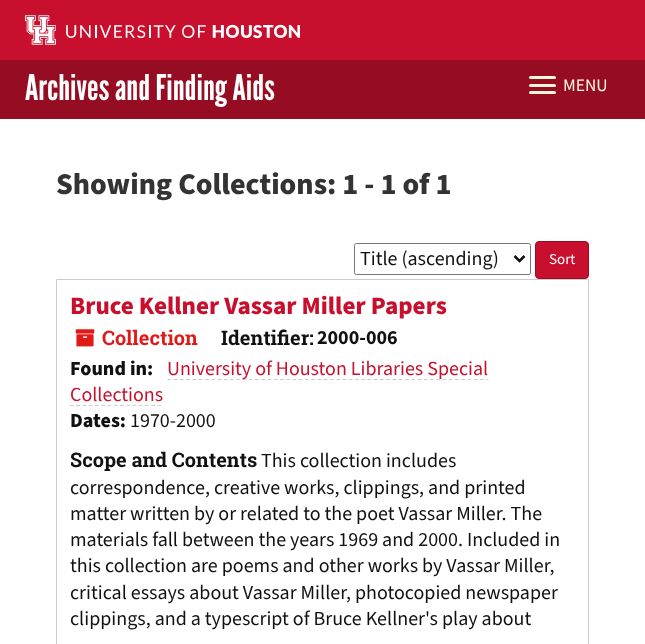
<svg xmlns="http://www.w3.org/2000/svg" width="645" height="644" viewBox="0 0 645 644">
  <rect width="100%" height="100%" fill="#fff"/>
  <path d="M0 0h645v60H0z" fill="#c8102e"/>
  <image x="25" y="15" width="275" height="30" href="img/1.png"/>
  <path d="M0 60h645v59H0z" fill="#960c22"/>
  <rect x="529" y="76" width="27" height="3" rx="1.5" fill="#fff9d9"/>
  <rect x="529" y="84" width="27" height="3" rx="1.5" fill="#fff9d9"/>
  <rect x="529" y="91" width="27" height="3" rx="1.5" fill="#fff9d9"/>
  <rect x="354.5" y="243.5" width="176" height="31" rx="2" fill="none" stroke="#767676"/>
  <path d="M514.5 256L519.5 261L524.5 256" fill="none" stroke="#111" stroke-width="2.5"/>
  <rect x="535.5" y="241.5" width="53" height="37" rx="3.5" fill="#c8102e" stroke="#960c22"/>
  <path d="M56.5 279.5h532v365H56.5z" fill="none" stroke="#ccc"/>
  <image x="75" y="329" width="20" height="18" href="img/2.png"/>
  <path d="M167.5 379.5H488.5" fill="none" stroke="#ccc" stroke-width="1.2" stroke-dasharray="3.75 2.5"/>
  <path d="M70 405.5H163" fill="none" stroke="#ccc" stroke-width="1.2" stroke-dasharray="3.75 2.5"/>
  <text x="25" y="100" font-family="League Gothic" font-size="35.5" fill="#fff">Archives and Finding Aids</text>
  <text x="563" y="91" font-family="'Source Sans 3'" font-size="17.5" fill="#fff9d9">MENU</text>
  <text x="56" y="194" font-family="'Source Sans 3'" font-size="30" font-weight="800" fill="#333">Showing Collections: 1 - 1 of 1</text>
  <text x="360" y="265" font-family="'Source Sans 3'" font-size="20" fill="#111">Title (ascending)</text>
  <text x="549" y="264" font-family="'Source Sans 3'" font-size="15" fill="#fff">Sort</text>
  <text x="70" y="314" font-family="'Source Sans 3'" font-size="25" font-weight="800" fill="#c8102e">Bruce Kellner Vassar Miller Papers</text>
  <text x="102" y="345" font-family="Roboto Slab" font-size="20" font-weight="bold" fill="#e01919">Collection</text>
  <text x="221" y="345" font-family="Roboto Slab" font-size="20" font-weight="bold" fill="#111">Identifier:</text>
  <text x="317" y="344" font-family="'Source Sans 3'" font-size="20" font-weight="bold" fill="#111">2000-006</text>
  <text x="70" y="375" font-family="'Source Sans 3'" font-size="20" font-weight="800" fill="#111">Found in:</text>
  <g font-family="'Source Sans 3'" font-size="20" fill="#c8102e">
    <text x="167" y="375">University of Houston Libraries Special</text>
    <text x="70" y="401">Collections</text>
  </g>
  <text x="70" y="427" font-family="'Source Sans 3'" font-size="20" font-weight="800" fill="#111">Dates:</text>
  <text x="130" y="427" font-family="'Source Sans 3'" font-size="20" fill="#111">1970-2000</text>
  <text x="70" y="467" font-family="Roboto Slab" font-size="20" font-weight="bold" fill="#111">Scope and Contents</text>
  <g font-family="'Source Sans 3'" font-size="20" fill="#111">
    <text x="261" y="467">This collection includes</text>
    <text x="70" y="494">correspondence, creative works, clippings, and printed</text>
    <text x="70" y="520">matter written by or related to the poet Vassar Miller. The</text>
    <text x="70" y="546">materials fall between the years 1969 and 2000. Included in</text>
    <text x="70" y="572">this collection are poems and other works by Vassar Miller,</text>
    <text x="70" y="599">critical essays about Vassar Miller, photocopied newspaper</text>
    <text x="70" y="625">clippings, and a typescript of Bruce Kellner's play about</text>
  </g>
</svg>
